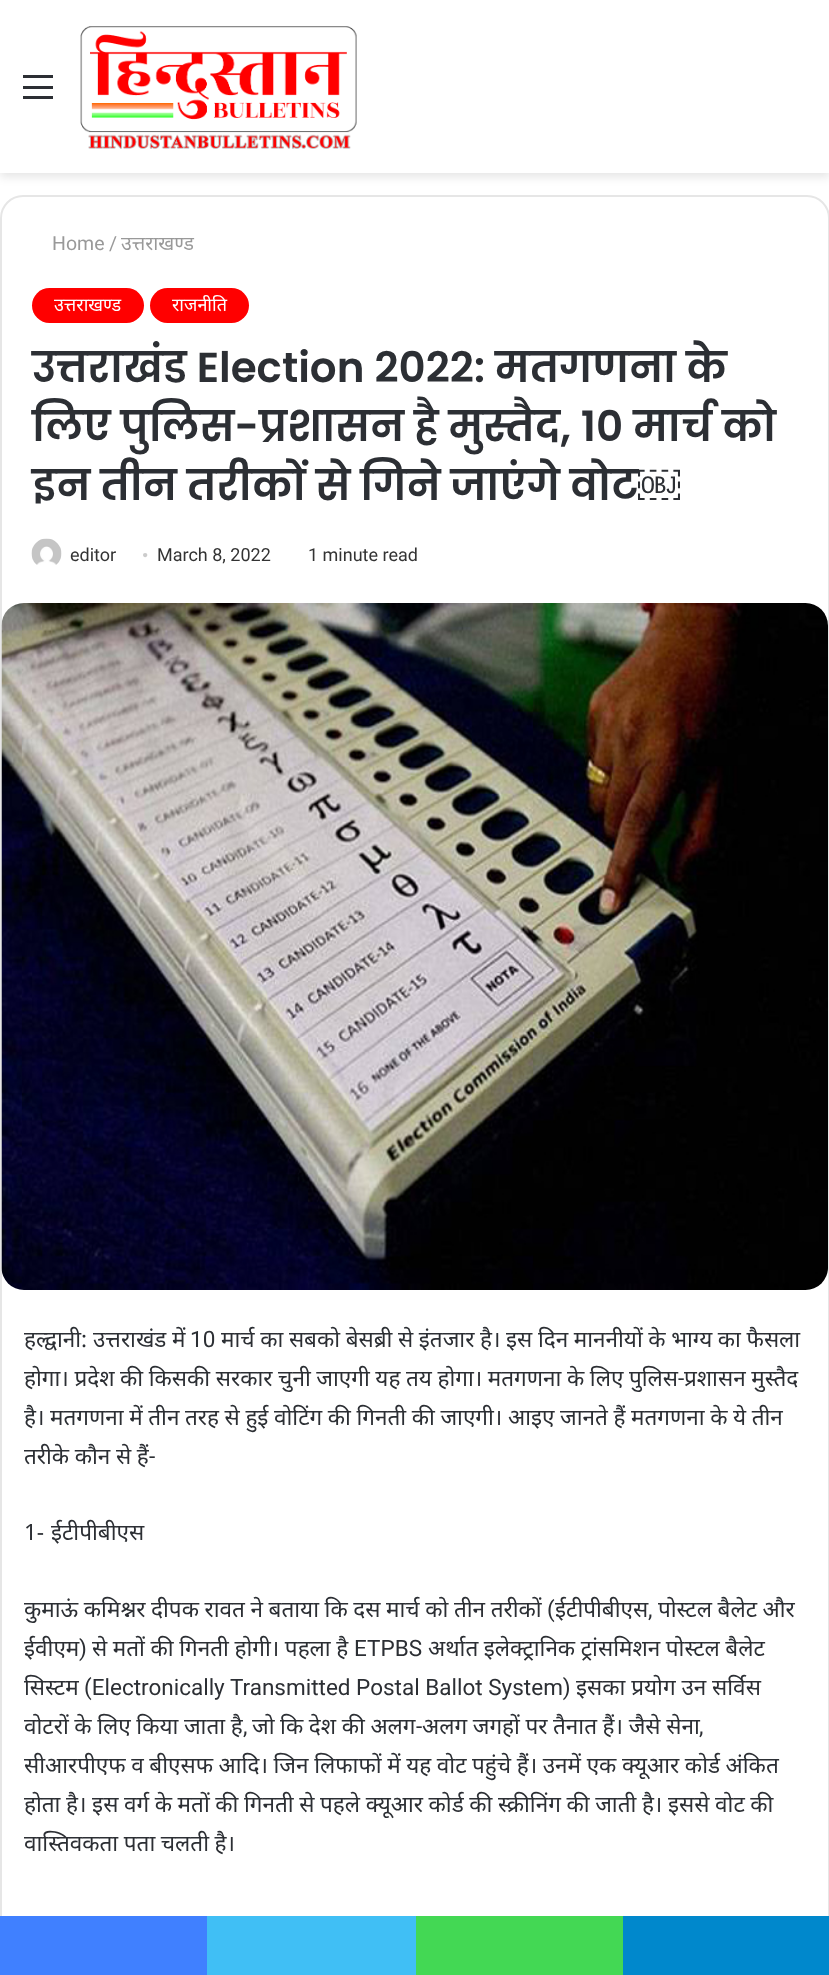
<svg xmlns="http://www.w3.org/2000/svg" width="829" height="1975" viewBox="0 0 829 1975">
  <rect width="100%" height="100%" fill="#fff"/>
  <path d="M0 5h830v172H0z" fill="#0000001a" filter="blur(5px)"/>
  <path d="M0 0h829v173H0z" fill="#fff"/>
  <path d="M23 86h30v3H23z" fill="#2c2f34"/>
  <path d="M23 75h30v3H23z" fill="#2c2f34"/>
  <path d="M23 96h30v3H23z" fill="#2c2f34"/>
  <image x="80" y="26" width="277" height="123" href="img/1.png"/>
  <rect x="1" y="196" width="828" height="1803" rx="22" fill="none" stroke="#e6e6e6" stroke-width="2"/>
  <rect x="32" y="288" width="112" height="35" rx="17.5" fill="#f00"/>
  <rect x="150" y="288" width="99" height="35" rx="17.5" fill="#f00"/>
  <image x="31" y="538" width="31" height="27" href="img/2.png"/>
  <image x="1" y="603" width="827" height="687" href="img/3.png"/>
  <path d="M0 1916h207v59H0z" fill="#4080ff"/>
  <path d="M207 1916h209v59H207z" fill="#40bff5"/>
  <path d="M416 1916h207v59H416z" fill="#43d854"/>
  <path d="M623 1916h206v59H623z" fill="#08c"/>
  <g font-family="Roboto" font-size="19.5" fill="#999">
    <text x="52" y="250">Home</text>
    <text x="109" y="250">/</text>
  </g>
  <text x="121" y="250" font-family="Noto Sans" font-size="19.5" fill="#999">उत्तराखण्ड</text>
  <g font-family="Noto Sans" font-size="18" fill="#fff">
    <text x="54" y="311">उत्तराखण्ड</text>
    <text x="172" y="311">राजनीति</text>
  </g>
  <g font-family="Poppins" font-size="42" font-weight="600" fill="#2c2f34">
    <text x="32" y="382">उत्तराखंड Election 2022: मतगणना के</text>
    <text x="32" y="441">लिए पुलिस-प्रशासन है मुस्तैद, 10 मार्च को</text>
    <text x="32" y="500">इन तीन तरीकों से गिने जाएंगे वोट</text>
  </g>
  <text x="638" y="500" font-family="Liberation Serif" font-size="42" font-weight="bold" fill="#2c2f34">￼</text>
  <text x="70" y="561" font-family="Roboto" font-size="18" fill="#333">editor</text>
  <text x="142" y="561" font-family="Liberation Serif" font-size="18" fill="#ccc">•</text>
  <g font-family="Roboto" font-size="18" fill="#333">
    <text x="157" y="561">March 8, 2022</text>
    <text x="308" y="561">1 minute read</text>
  </g>
  <g font-family="Noto Sans" font-size="22.5" fill="#2c2f34">
    <text x="24" y="1347">हल्द्वानी:</text>
    <text x="93" y="1347" word-spacing="-0.25">उत्तराखंड में</text>
  </g>
  <text x="190" y="1347" font-family="Roboto" font-size="22.5" fill="#2c2f34">10</text>
  <g font-family="Noto Sans" font-size="22.5" fill="#2c2f34">
    <text x="221" y="1347" word-spacing="-0.25">मार्च का सबको बेसब्री से इंतजार है। इस दिन माननीयों के भाग्य का फैसला</text>
    <text x="24" y="1386" word-spacing="-0.25">होगा। प्रदेश की किसकी सरकार चुनी जाएगी यह तय होगा। मतगणना के लिए पुलिस</text>
  </g>
  <text x="678" y="1386" font-family="Roboto" font-size="22.5" fill="#2c2f34">-</text>
  <g font-family="Noto Sans" font-size="22.5" fill="#2c2f34">
    <text x="684" y="1386" word-spacing="-0.25">प्रशासन मुस्तैद</text>
    <text x="24" y="1425" word-spacing="-0.25">है। मतगणना में तीन तरह से हुई वोटिंग की गिनती की जाएगी। आइए जानते हैं मतगणना के ये तीन</text>
    <text x="24" y="1464" word-spacing="-0.25">तरीके कौन से हैं</text>
  </g>
  <text x="149" y="1464" font-family="Roboto" font-size="22.5" fill="#2c2f34">-</text>
  <g font-family="Noto Sans" font-size="22.5" fill="#2c2f34">
    <text x="24" y="1540" word-spacing="1">1- ईटीपीबीएस</text>
    <text x="24" y="1617" word-spacing="-0.25">कुमाऊं कमिश्नर दीपक रावत ने बताया कि दस मार्च को तीन तरीकों</text>
    <text x="658" y="1617" word-spacing="-0.25">पोस्टल बैलेट और</text>
  </g>
  <text x="547" y="1617" font-family="Roboto" font-size="22.5" fill="#2c2f34">(</text>
  <text x="555" y="1617" font-family="Noto Sans" font-size="22.5" fill="#2c2f34">ईटीपीबीएस</text>
  <text x="648" y="1617" font-family="Roboto" font-size="22.5" fill="#2c2f34">,</text>
  <text x="24" y="1656" font-family="Noto Sans" font-size="22.5" fill="#2c2f34">ईवीएम</text>
  <text x="79" y="1656" font-family="Roboto" font-size="22.5" fill="#2c2f34">)</text>
  <text x="92" y="1656" word-spacing="-0.25" font-family="Noto Sans" font-size="22.5" fill="#2c2f34">से मतों की गिनती होगी। पहला है</text>
  <text x="354" y="1656" font-family="Roboto" font-size="22.5" fill="#2c2f34">ETPBS</text>
  <g font-family="Noto Sans" font-size="22.5" fill="#2c2f34">
    <text x="428" y="1656" word-spacing="-0.25">अर्थात इलेक्ट्रानिक ट्रांसमिशन पोस्टल बैलेट</text>
    <text x="24" y="1695">सिस्टम</text>
  </g>
  <text x="84" y="1695" font-family="Roboto" font-size="22.5" fill="#2c2f34">(Electronically Transmitted Postal Ballot System)</text>
  <g font-family="Noto Sans" font-size="22.5" fill="#2c2f34">
    <text x="576" y="1695">इसका प्रयोग उन सर्विस</text>
    <text x="24" y="1734" word-spacing="-0.25">वोटरों के लिए किया जाता है</text>
    <text x="252" y="1734" word-spacing="-0.25">जो कि देश की अलग</text>
  </g>
  <text x="416" y="1734" font-family="Roboto" font-size="22.5" fill="#2c2f34">-</text>
  <text x="422" y="1734" word-spacing="-0.25" font-family="Noto Sans" font-size="22.5" fill="#2c2f34">अलग जगहों पर तैनात हैं। जैसे सेना</text>
  <g font-family="Roboto" font-size="22.5" fill="#2c2f34">
    <text x="243" y="1734">,</text>
    <text x="699" y="1734">,</text>
  </g>
  <g font-family="Noto Sans" font-size="22.5" fill="#2c2f34">
    <text x="24" y="1773" word-spacing="-0.25">सीआरपीएफ व बीएसफ आदि। जिन लिफाफों में यह वोट पहुंचे हैं। उनमें एक क्यूआर कोर्ड अंकित</text>
    <text x="24" y="1812" word-spacing="-0.25">होता है। इस वर्ग के मतों की गिनती से पहले क्यूआर कोर्ड की स्क्रीनिंग की जाती है। इससे वोट की</text>
    <text x="24" y="1851" word-spacing="-0.25">वास्तिवकता पता चलती है।</text>
  </g>
</svg>
